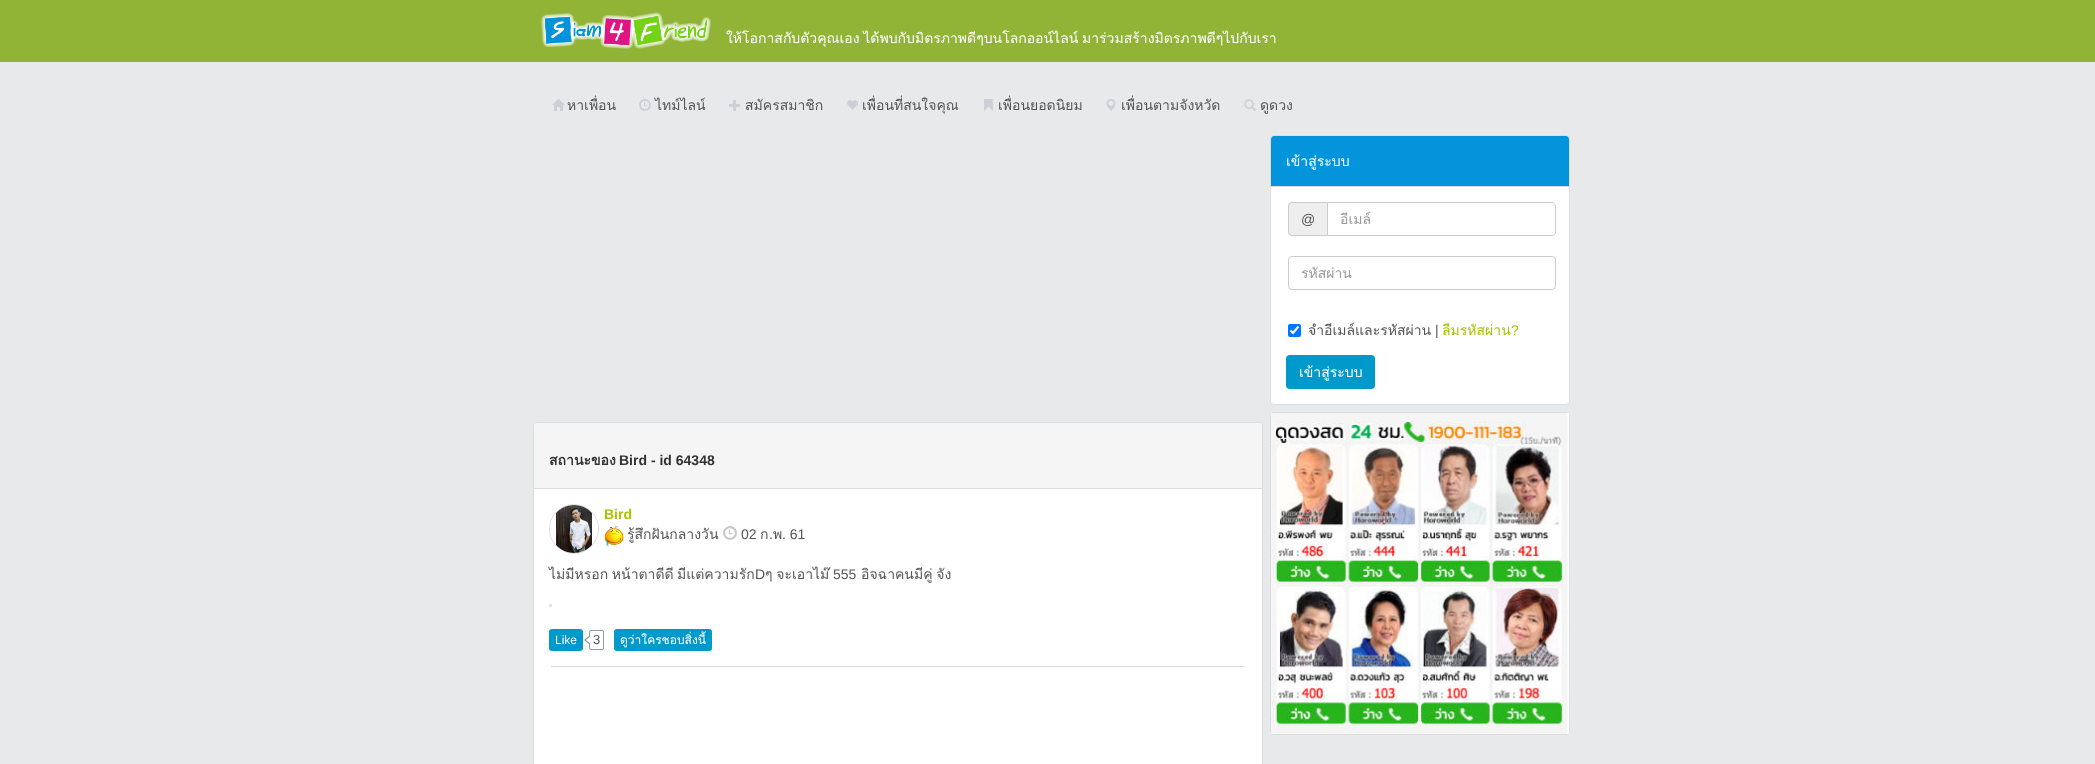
<svg xmlns="http://www.w3.org/2000/svg" width="2095" height="764" viewBox="0 0 2095 764">
  <defs>
    <clipPath id="clip1"><path d="M1340 208h203v22H1340z"/></clipPath>
  </defs>
  <rect width="100%" height="100%" fill="#e8e9eb"/>
  <path d="M0 0h2095v62H0z" fill="#91b336"/>
  <image x="541" y="12" width="170" height="37" href="img/1.png"/>
  <image x="552" y="98" width="13" height="13" href="img/2.png"/>
  <image x="639" y="99" width="12" height="12" href="img/3.png"/>
  <image x="729" y="100" width="11" height="11" href="img/4.png"/>
  <image x="847" y="100" width="11" height="10" href="img/5.png"/>
  <image x="984" y="99" width="9" height="12" href="img/6.png"/>
  <image x="1106" y="99" width="10" height="12" href="img/7.png"/>
  <rect x="1270.5" y="135.5" width="299" height="269" rx="3.5" fill="#fff" stroke="#ddd"/>
  <path d="M1274 136H1566C1567.5 136 1569 137.5 1569 139V187H1271V139C1271 137.5 1272.5 136 1274 136Z" fill="#0494db"/>
  <path d="M1271 186h298v1H1271z" fill="#ddd"/>
  <path d="M1292 202H1327V236H1292C1290 236 1288 234 1288 232V206C1288 204 1290 202 1292 202Z" fill="#eee"/>
  <path d="M1292 202H1327V236H1292C1290 236 1288 234 1288 232V206C1288 204 1290 202 1292 202ZM1292 203H1327V235H1292C1290.5 235 1289 233.5 1289 232V206C1289 204.5 1290.5 203 1292 203Z" fill="#ccc" fill-rule="evenodd"/>
  <path d="M1327.5 202.5H1552C1554 202.5 1555.5 204 1555.5 206V232C1555.5 234 1554 235.5 1552 235.5H1327.5Z" fill="none" stroke="#ccc"/>
  <rect x="1288.5" y="256.5" width="267" height="33" rx="3.5" fill="none" stroke="#ccc"/>
  <rect x="1288" y="324" width="13" height="13" rx="2" fill="#0075ff"/>
  <path d="M1290.5 330.5L1293 333L1298.5 326.5" fill="none" stroke="#fff" stroke-width="2.1"/>
  <rect x="1286" y="355" width="89" height="34" rx="4" fill="#09c"/>
  <rect x="1270.5" y="412.5" width="299" height="322" rx="3.5" fill="none" stroke="#ddd"/>
  <image x="1271" y="413" width="298" height="321" href="img/9.png"/>
  <rect x="533.5" y="422.5" width="729" height="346" rx="3.5" fill="#fff" stroke="#ddd"/>
  <path d="M537 423H1259C1260.5 423 1262 424.5 1262 426V489H534V426C534 424.5 535.5 423 537 423Z" fill="#f5f5f5"/>
  <path d="M534 488h728v1H534z" fill="#ddd"/>
  <path d="M551 666h694v1H551z" fill="#ddd"/>
  <circle cx="574" cy="529" r="24.5" fill="none" stroke="#ddd"/>
  <image x="550" y="505" width="48" height="48" href="img/10.png"/>
  <image x="604" y="526" width="20" height="20" href="img/11.png"/>
  <image x="723" y="526" width="14" height="14" href="img/12.png"/>
  <path d="M549.5 604.5h2v2H549.5z" fill="none" stroke="#ddd"/>
  <path d="M550 605h1v1H550z" fill="#f1f1f1"/>
  <rect x="549" y="629" width="34" height="22" rx="3" fill="#09c"/>
  <path d="M589 636V644L584 640Z" fill="#9197a3"/>
  <rect x="589.5" y="630.5" width="14" height="19" rx="1.5" fill="none" stroke="#9197a3"/>
  <path d="M591 636V644L586 640Z" fill="#fff"/>
  <rect x="614" y="629" width="98" height="22" rx="3" fill="#09c"/>
  <g font-family="Loma" font-size="14" fill="#fff">
    <text x="726" y="43" word-spacing="-1">ให้โอกาสกับตัวคุณเอง ได้พบกับมิตรภาพดีๆบนโลกออน์ไลน์</text>
    <text x="1082" y="43">มาร่วมสร้างมิตรภาพดีๆไปกับเรา</text>
  </g>
  <g font-family="Loma" font-size="14" fill="#555">
    <text x="567" y="110">หาเพื่อน</text>
    <text x="655" y="110">ไทม์ไลน์</text>
    <text x="745" y="110">สมัครสมาชิก</text>
    <text x="862" y="110">เพื่อนที่สนใจคุณ</text>
    <text x="998" y="110">เพื่อนยอดนิยม</text>
    <text x="1121" y="110">เพื่อนตามจังหวัด</text>
    <text x="1260" y="110">ดูดวง</text>
  </g>
  <image x="1244" y="99" width="12" height="12" href="img/8.png"/>
  <text x="1286" y="166" font-family="Loma" font-size="14" fill="#fff">เข้าสู่ระบบ</text>
  <text x="1301" y="224" font-family="Liberation Sans" font-size="14" fill="#555">@</text>
  <g clip-path="url(#clip1)">
    <text x="1340" y="224" font-family="Loma" font-size="14" fill="#999">อีเมล์</text>
  </g>
  <text x="1301" y="278" font-family="Loma" font-size="14" fill="#999">รหัสผ่าน</text>
  <text x="1308" y="335" font-family="Loma" font-size="14" fill="#555">จำอีเมล์และรหัสผ่าน</text>
  <text x="1435" y="335" font-family="Liberation Sans" font-size="14" fill="#555">|</text>
  <text x="1442" y="335" font-family="Loma" font-size="14" fill="#a9c201">ลืมรหัสผ่าน</text>
  <text x="1511" y="335" font-family="Liberation Sans" font-size="14" fill="#a9c201">?</text>
  <text x="1299" y="377" font-family="Loma" font-size="14" fill="#fff">เข้าสู่ระบบ</text>
  <text x="549" y="465" font-family="Loma" font-size="14" font-weight="bold" fill="#333">สถานะของ</text>
  <text x="619" y="465" font-family="Liberation Sans" font-size="14" font-weight="bold" fill="#333">Bird - id 64348</text>
  <text x="604" y="519" font-family="Liberation Sans" font-size="14" font-weight="bold" fill="#a9c201">Bird</text>
  <text x="627" y="539" font-family="Loma" font-size="14" fill="#555">รู้สึกฝันกลางวัน</text>
  <text x="741" y="539" font-family="Liberation Sans" font-size="14" fill="#555">02</text>
  <text x="760" y="539" font-family="Loma" font-size="14" fill="#555">ก</text>
  <text x="769" y="539" font-family="Liberation Sans" font-size="14" fill="#555">.</text>
  <text x="773" y="539" font-family="Loma" font-size="14" fill="#555">พ</text>
  <text x="782" y="539" font-family="Liberation Sans" font-size="14" fill="#555">. 61</text>
  <g font-family="Loma" font-size="14" fill="#555">
    <text x="549" y="579" word-spacing="-1">ไม่มีหรอก หน้าตาดีดี</text>
    <text x="677" y="579">มีแต่ความรัก</text>
  </g>
  <text x="755" y="579" font-family="Liberation Sans" font-size="14" fill="#555">D</text>
  <text x="765" y="579" word-spacing="-1" font-family="Loma" font-size="14" fill="#555">ๆ จะเอาไม๊</text>
  <text x="833" y="579" font-family="Liberation Sans" font-size="14" fill="#555">555</text>
  <text x="861" y="579" word-spacing="-1" font-family="Loma" font-size="14" fill="#555">อิจฉาคนมีคู่ จัง</text>
  <text x="555" y="644" font-family="Liberation Sans" font-size="12" fill="#fff">Like</text>
  <text x="593" y="644" font-family="Liberation Sans" font-size="13" fill="#4e5665">3</text>
  <text x="620" y="644" font-family="Loma" font-size="12" fill="#fff">ดูว่าใครชอบสิ่งนี้</text>
</svg>
